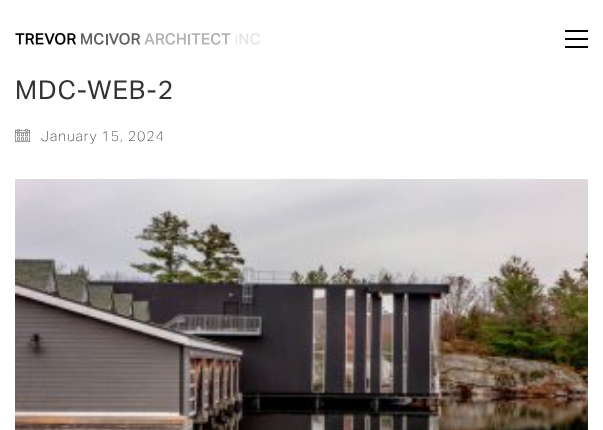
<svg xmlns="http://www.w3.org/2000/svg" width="603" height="430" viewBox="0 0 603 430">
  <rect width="100%" height="100%" fill="#fff"/>
  <image x="15" y="33" width="245" height="12" href="img/1.png"/>
  <path d="M565 30h23v2H565z" fill="#000"/>
  <path d="M565 38h23v2H565z" fill="#000"/>
  <path d="M565 46h23v2H565z" fill="#000"/>
  <image x="15" y="129" width="15" height="13" href="img/2.png"/>
  <image x="15" y="179" width="573" height="251" href="img/3.png"/>
  <text x="15" y="99" font-family="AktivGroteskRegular" font-size="26" letter-spacing="1" fill="#333">MDC-WEB-2</text>
  <text x="41" y="141" font-family="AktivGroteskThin" font-size="14" font-weight="100" letter-spacing="1" fill="#333">January 15, 2024</text>
</svg>
